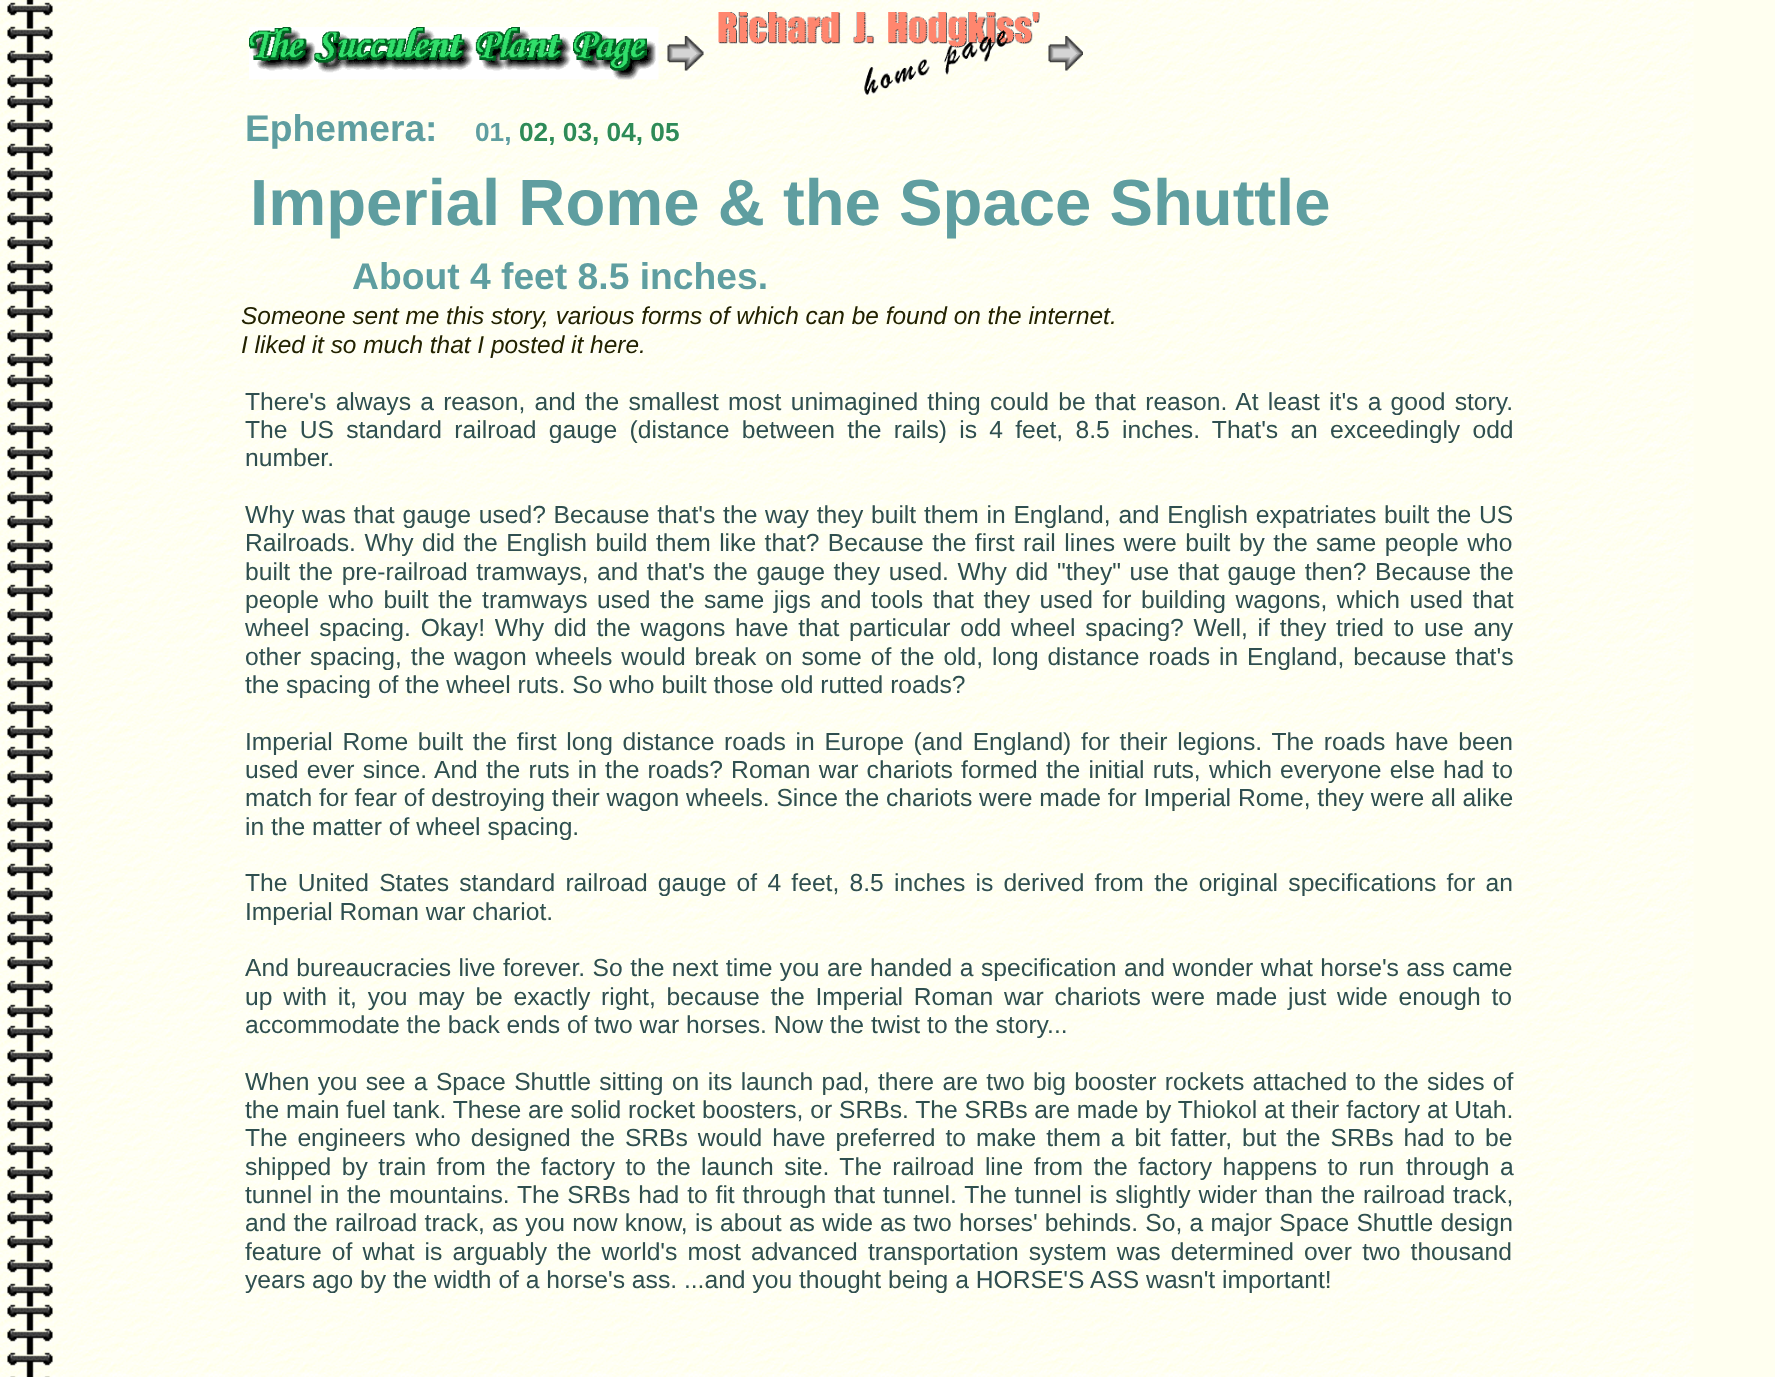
<svg xmlns="http://www.w3.org/2000/svg" width="1775" height="1377" viewBox="0 0 1775 1377">
  <rect width="100%" height="100%" fill="#fffff0"/>
  <image x="0" y="0" width="1694" height="1377" href="img/1.png"/>
  <image x="249" y="27" width="410" height="53" href="img/2.png"/>
  <image x="667" y="36" width="37" height="35" href="img/3.png"/>
  <image x="718" y="12" width="322" height="83" href="img/4.png"/>
  <image x="1048" y="36" width="35" height="35" href="img/5.png"/>
  <text x="245" y="141" font-family="Liberation Sans" font-size="37.25" font-weight="bold" fill="#5f9ea0">Ephemera:</text>
  <text x="475" y="141" font-family="Liberation Sans" font-size="26.25" font-weight="bold" fill="#5f9ea0">01,</text>
  <text x="519" y="141" font-family="Liberation Sans" font-size="26.25" font-weight="bold" fill="#2e8b57">02, 03, 04, 05</text>
  <text x="250" y="225" font-family="Liberation Sans" font-size="65.25" font-weight="bold" fill="#5f9ea0">Imperial Rome &amp; the Space Shuttle</text>
  <text x="352" y="289" font-family="Liberation Sans" font-size="37.25" font-weight="bold" fill="#5f9ea0">About 4 feet 8.5 inches.</text>
  <g font-family="Liberation Sans" font-size="24.45" font-style="italic" fill="#220">
    <text x="241" y="324">Someone sent me this story, various forms of which can be found on the internet.</text>
    <text x="241" y="353">I liked it so much that I posted it here.</text>
  </g>
  <g font-family="Liberation Sans" font-size="24.65" fill="#2f4f4f">
    <text x="245" y="410" word-spacing="2.4">There's always a reason, and the smallest most unimagined thing could be that reason. At least it's a good story.</text>
    <text x="245" y="438" word-spacing="5.4">The US standard railroad gauge (distance between the rails) is 4 feet, 8.5 inches. That's an exceedingly odd</text>
    <text x="245" y="466">number.</text>
    <text x="245" y="523" word-spacing="0.9">Why was that gauge used? Because that's the way they built them in England, and English expatriates built the US</text>
    <text x="245" y="551" word-spacing="1.6">Railroads. Why did the English build them like that? Because the first rail lines were built by the same people who</text>
    <text x="245" y="580" word-spacing="1.75">built the pre-railroad tramways, and that's the gauge they used. Why did "they" use that gauge then? Because the</text>
    <text x="245" y="608" word-spacing="2.75">people who built the tramways used the same jigs and tools that they used for building wagons, which used that</text>
    <text x="245" y="636" word-spacing="2.9">wheel spacing. Okay! Why did the wagons have that particular odd wheel spacing? Well, if they tried to use any</text>
    <text x="245" y="665" word-spacing="2.1">other spacing, the wagon wheels would break on some of the old, long distance roads in England, because that's</text>
    <text x="245" y="693">the spacing of the wheel ruts. So who built those old rutted roads?</text>
    <text x="245" y="750" word-spacing="2.9">Imperial Rome built the first long distance roads in Europe (and England) for their legions. The roads have been</text>
    <text x="245" y="778" word-spacing="1.35">used ever since. And the ruts in the roads? Roman war chariots formed the initial ruts, which everyone else had to</text>
    <text x="245" y="806">match for fear of destroying their wagon wheels. Since the chariots were made for Imperial Rome, they were all alike</text>
    <text x="245" y="835">in the matter of wheel spacing.</text>
    <text x="245" y="891" word-spacing="3.4">The United States standard railroad gauge of 4 feet, 8.5 inches is derived from the original specifications for an</text>
    <text x="245" y="920">Imperial Roman war chariot.</text>
    <text x="245" y="976" word-spacing="0.6">And bureaucracies live forever. So the next time you are handed a specification and wonder what horse's ass came</text>
    <text x="245" y="1005" word-spacing="3.9">up with it, you may be exactly right, because the Imperial Roman war chariots were made just wide enough to</text>
    <text x="245" y="1033">accommodate the back ends of two war horses. Now the twist to the story...</text>
    <text x="245" y="1090" word-spacing="1.5">When you see a Space Shuttle sitting on its launch pad, there are two big booster rockets attached to the sides of</text>
    <text x="245" y="1118">the main fuel tank. These are solid rocket boosters, or SRBs. The SRBs are made by Thiokol at their factory at Utah.</text>
    <text x="245" y="1146" word-spacing="3.1">The engineers who designed the SRBs would have preferred to make them a bit fatter, but the SRBs had to be</text>
    <text x="245" y="1175" word-spacing="3.6">shipped by train from the factory to the launch site. The railroad line from the factory happens to run</text>
    <text x="1406" y="1175" word-spacing="3.6">through a</text>
    <text x="245" y="1203" word-spacing="1">tunnel in the mountains. The SRBs had to fit through that tunnel. The tunnel is slightly wider than the railroad track,</text>
    <text x="245" y="1231" word-spacing="0.5">and the railroad track,</text>
    <text x="492" y="1231" word-spacing="0.4">as you now know, is about as wide as two horses' behinds. So, a major Space Shuttle design</text>
    <text x="245" y="1260" word-spacing="3.25">feature of what is arguably the world's most advanced transportation system was determined over two thousand</text>
    <text x="245" y="1288">years ago by the width of a horse's ass. ...and you thought being a HORSE'S ASS wasn't important!</text>
  </g>
</svg>
